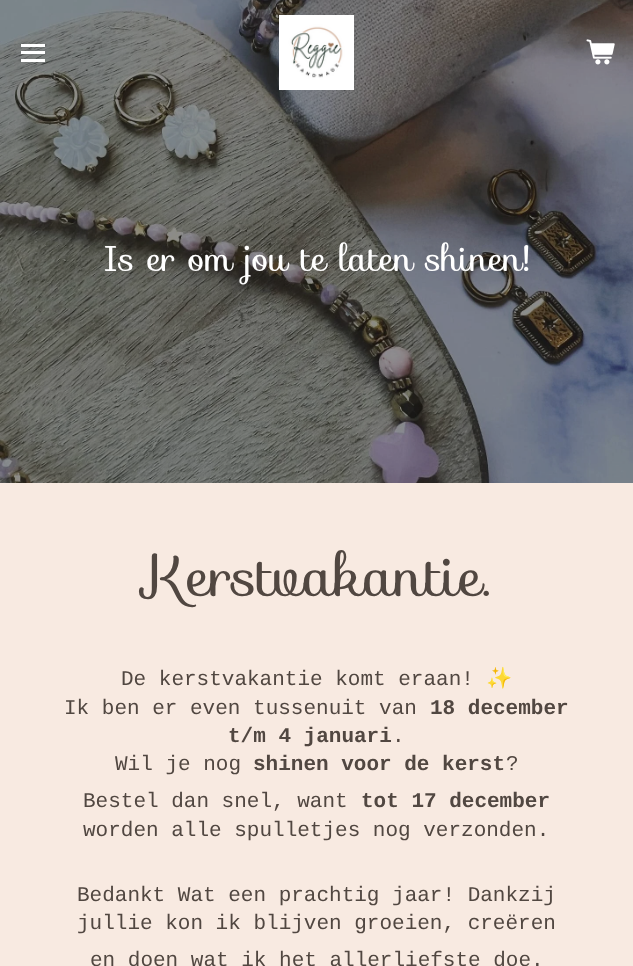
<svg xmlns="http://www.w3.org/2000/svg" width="633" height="966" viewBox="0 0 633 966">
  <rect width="100%" height="100%" fill="#f8eae1"/>
  <image x="0" y="0" width="633" height="483" href="img/3.png"/>
  <path d="M21 51h24v3H21z" fill="#fff"/>
  <path d="M21 44h24v3H21z" fill="#fff"/>
  <path d="M21 59h24v3H21z" fill="#fff"/>
  <image x="279" y="15" width="75" height="75" href="img/1.png"/>
  <image x="586" y="39" width="29" height="26" href="img/2.png"/>
  <text x="103" y="271" font-family="Sofia" font-size="35.75" fill="#fff">Is er om jou te laten shinen!</text>
  <text x="144" y="596" font-family="Sofia" font-size="57" fill="#514741">Kerstvakantie.</text>
  <text x="121" y="685" font-family="Liberation Mono" font-size="21" fill="#514741">De kerstvakantie komt eraan!</text>
  <text x="486" y="685" font-family="Noto Color Emoji" font-size="21" fill="#514741">✨</text>
  <text x="64" y="714" font-family="Liberation Mono" font-size="21" fill="#514741">Ik ben er even tussenuit van</text>
  <g font-family="Liberation Mono" font-size="21" font-weight="bold" fill="#514741">
    <text x="430" y="714">18 december</text>
    <text x="228" y="742">t/m 4 januari</text>
  </g>
  <g font-family="Liberation Mono" font-size="21" fill="#514741">
    <text x="392" y="742">.</text>
    <text x="115" y="770">Wil je nog</text>
  </g>
  <text x="253" y="770" font-family="Liberation Mono" font-size="21" font-weight="bold" fill="#514741">shinen voor de kerst</text>
  <g font-family="Liberation Mono" font-size="21" fill="#514741">
    <text x="506" y="770">?</text>
    <text x="83" y="807">Bestel dan snel, want</text>
  </g>
  <text x="361" y="807" font-family="Liberation Mono" font-size="21" font-weight="bold" fill="#514741">tot 17 december</text>
  <g font-family="Liberation Mono" font-size="21" fill="#514741">
    <text x="83" y="836">worden alle spulletjes nog verzonden.</text>
    <text x="77" y="901">Bedankt Wat een prachtig jaar! Dankzij</text>
    <text x="77" y="929">jullie kon ik blijven groeien, creëren</text>
    <text x="90" y="966">en doen wat ik het allerliefste doe.</text>
  </g>
</svg>
